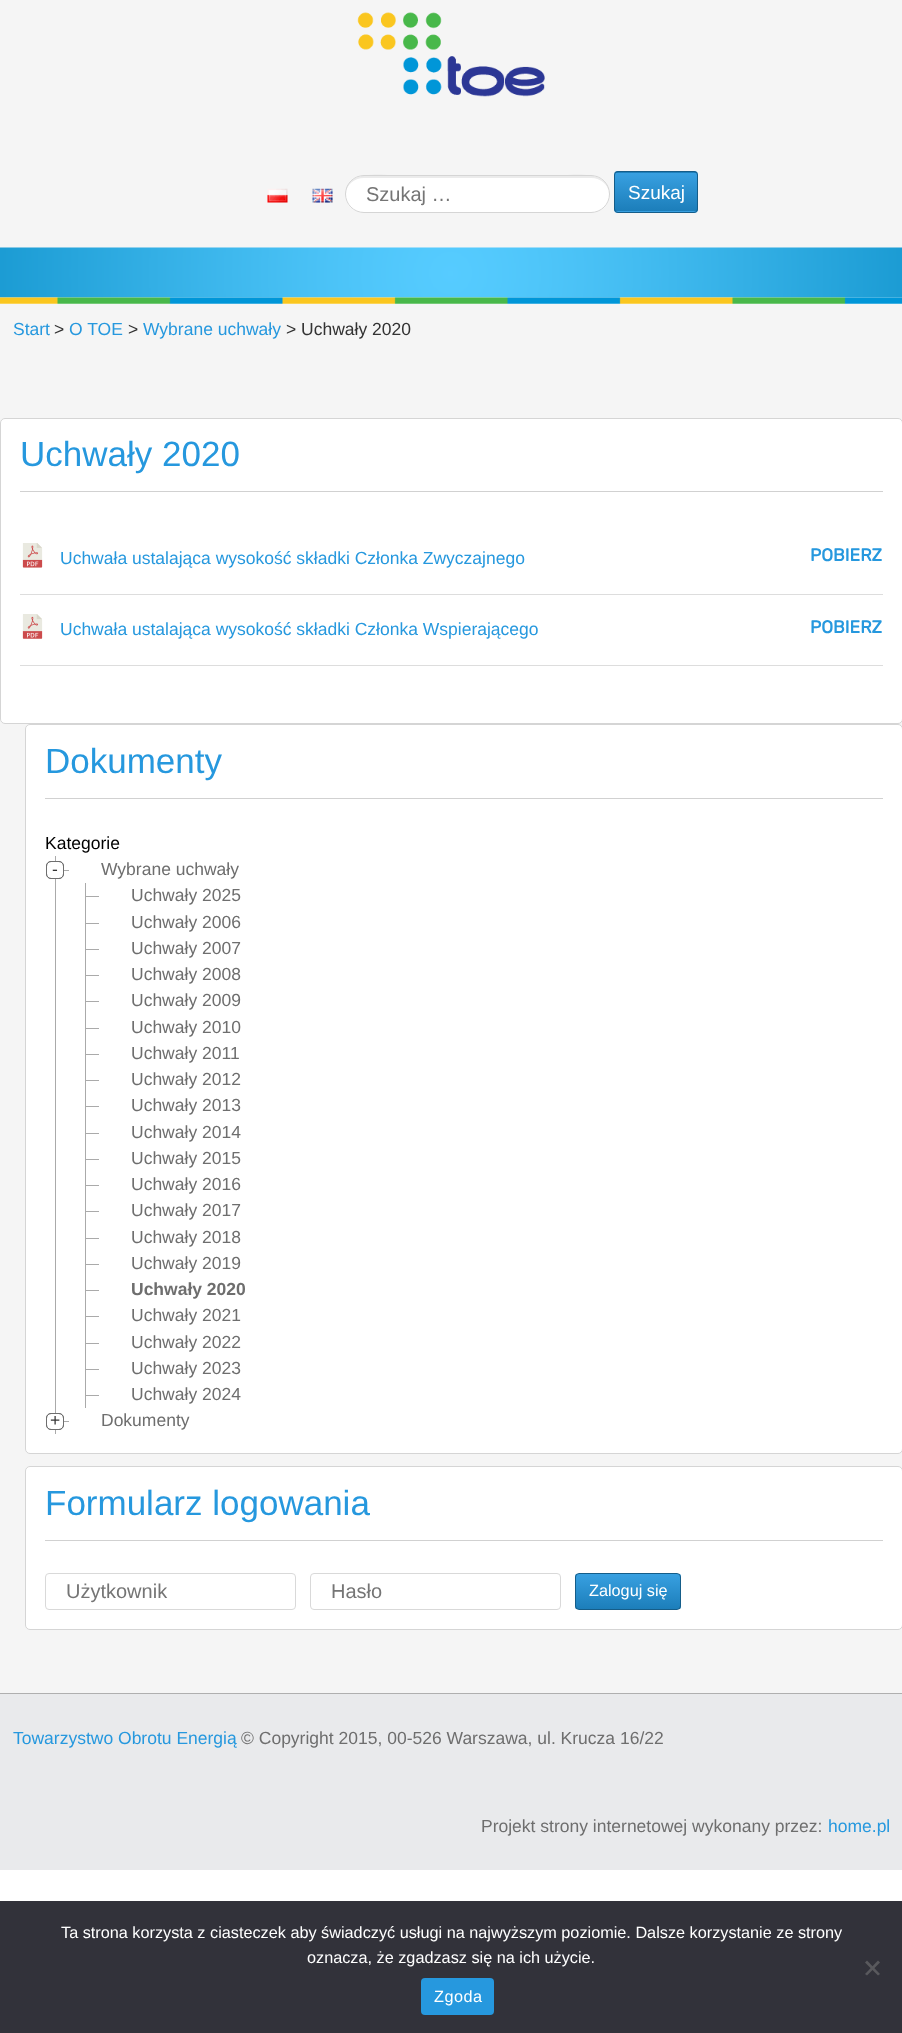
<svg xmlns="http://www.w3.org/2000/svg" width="902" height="2033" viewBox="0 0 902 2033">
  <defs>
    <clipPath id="clip1"><rect x="614" y="171" width="84" height="42" rx="4"/></clipPath>
    <linearGradient id="g1" gradientUnits="userSpaceOnUse" x1="656" y1="134" x2="656" y2="173"><stop offset="0" stop-color="#38a0e1"/><stop offset="1" stop-color="#1c7eba"/></linearGradient>
    <linearGradient id="g2" gradientUnits="userSpaceOnUse" x1="656" y1="173" x2="656" y2="211"><stop offset="0" stop-color="#38a0e1"/><stop offset="1" stop-color="#1c7eba"/></linearGradient>
    <linearGradient id="g3" gradientUnits="userSpaceOnUse" x1="656" y1="211" x2="656" y2="250"><stop offset="0" stop-color="#38a0e1"/><stop offset="1" stop-color="#1c7eba"/></linearGradient>
    <clipPath id="clip2"><rect x="575" y="1573" width="106" height="37" rx="4"/></clipPath>
    <linearGradient id="g4" gradientUnits="userSpaceOnUse" x1="628" y1="1574" x2="628" y2="1609"><stop offset="0" stop-color="#38a0e1"/><stop offset="1" stop-color="#1c7eba"/></linearGradient>
  </defs>
  <rect width="100%" height="100%" fill="#fff"/>
  <path d="M0 0h902v248H0z" fill="#f5f5f5"/>
  <image x="357" y="12" width="188" height="85" href="img/1.png"/>
  <image x="267" y="188" width="21" height="15" href="img/2.png"/>
  <image x="312" y="188" width="21" height="15" href="img/3.png"/>
  <rect x="345" y="175" width="265" height="38" rx="19" fill="#fff"/>
  <path d="M364 178H591C601 178 609 185 609 194C610 167 565 176 554 176H402C390 176 345 167 346 194C346 185 354 178 364 178Z" fill="#ebebeb"/>
  <rect x="345.5" y="175.5" width="264" height="37" rx="18.5" fill="none" stroke="#d5d5d5"/>
  <g clip-path="url(#clip1)">
    <path d="M614 171h84v2H614z" fill="url(#g1)"/>
    <path d="M614 173h84v38H614z" fill="url(#g2)"/>
    <path d="M614 211h84v2H614z" fill="url(#g3)"/>
  </g>
  <rect x="614.5" y="171.5" width="83" height="41" rx="3.5" fill="none" stroke="#155d89"/>
  <image x="0" y="247" width="902" height="51" href="img/4.png"/>
  <image x="0" y="297" width="902" height="7" href="img/5.png"/>
  <path d="M0 304h902v1389H0z" fill="#f5f5f5"/>
  <rect x="0.5" y="418.5" width="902" height="305" rx="4.5" fill="#fff" stroke="#d5d5d5"/>
  <path d="M20 491h863v1H20z" fill="#d1d1d1"/>
  <path d="M20 594h863v1H20z" fill="#ddd"/>
  <image x="22" y="543" width="21" height="25" href="img/6.png"/>
  <path d="M20 665h863v1H20z" fill="#ddd"/>
  <image x="22" y="614" width="21" height="25" href="img/7.png"/>
  <rect x="25.5" y="724.5" width="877" height="729" rx="4.5" fill="#fff" stroke="#d5d5d5"/>
  <path d="M45 798h838v1H45z" fill="#d1d1d1"/>
  <path d="M55 856h1v578H55z" fill="#aaa"/>
  <path d="M56 870h13v1H56z" fill="#aaa"/>
  <rect x="46.5" y="861.5" width="17" height="17" rx="4.5" fill="#fff" stroke="#6e6e6e"/>
  <rect x="46.5" y="861.5" width="17" height="17" rx="4.5" fill="none" stroke="#6e6e6e"/>
  <path d="M85 883h1v525H85z" fill="#aaa"/>
  <path d="M86 896h13v1H86z" fill="#aaa"/>
  <path d="M86 923h13v1H86z" fill="#aaa"/>
  <path d="M86 949h13v1H86z" fill="#aaa"/>
  <path d="M86 975h13v1H86z" fill="#aaa"/>
  <path d="M86 1001h13v1H86z" fill="#aaa"/>
  <path d="M86 1028h13v1H86z" fill="#aaa"/>
  <path d="M86 1054h13v1H86z" fill="#aaa"/>
  <path d="M86 1080h13v1H86z" fill="#aaa"/>
  <path d="M86 1106h13v1H86z" fill="#aaa"/>
  <path d="M86 1133h13v1H86z" fill="#aaa"/>
  <path d="M86 1159h13v1H86z" fill="#aaa"/>
  <path d="M86 1185h13v1H86z" fill="#aaa"/>
  <path d="M86 1211h13v1H86z" fill="#aaa"/>
  <path d="M86 1238h13v1H86z" fill="#aaa"/>
  <path d="M86 1264h13v1H86z" fill="#aaa"/>
  <path d="M86 1290h13v1H86z" fill="#aaa"/>
  <path d="M86 1316h13v1H86z" fill="#aaa"/>
  <path d="M86 1343h13v1H86z" fill="#aaa"/>
  <path d="M86 1369h13v1H86z" fill="#aaa"/>
  <path d="M86 1395h13v1H86z" fill="#aaa"/>
  <path d="M56 1421h13v1H56z" fill="#aaa"/>
  <rect x="46.5" y="1413.5" width="17" height="16" rx="4.5" fill="#fff" stroke="#6e6e6e"/>
  <rect x="46.5" y="1413.5" width="17" height="16" rx="4.5" fill="none" stroke="#6e6e6e"/>
  <rect x="25.5" y="1466.5" width="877" height="163" rx="4.5" fill="#fff" stroke="#d5d5d5"/>
  <path d="M45 1540h838v1H45z" fill="#d1d1d1"/>
  <rect x="45.5" y="1573.5" width="250" height="36" rx="3.5" fill="none" stroke="#d9d9d9"/>
  <rect x="310.5" y="1573.5" width="250" height="36" rx="3.5" fill="none" stroke="#d9d9d9"/>
  <g clip-path="url(#clip2)">
    <path d="M575 1574h106v35H575z" fill="url(#g4)"/>
  </g>
  <rect x="575.5" y="1573.5" width="105" height="36" rx="3.5" fill="none" stroke="#155d89"/>
  <path d="M0 1694h902v176H0z" fill="#e9eaec"/>
  <path d="M0 1693h902v1H0z" fill="#afafaf"/>
  <path d="M0 1901h902v132H0z" fill="#32323a"/>
  <path d="M878 1960.5L880 1962.5L867 1975.5L865 1974Z" fill="#59595d"/>
  <path d="M865 1962.5L867 1960.5L880 1974L878 1975.5Z" fill="#59595d"/>
  <rect x="421" y="1978" width="73" height="37" rx="4" fill="#2698de"/>
  <text x="366" y="201" font-family="Liberation Sans" font-size="20" fill="#757575">Szukaj …</text>
  <text x="628" y="199" font-family="Liberation Sans" font-size="19" fill="#fff">Szukaj</text>
  <text x="13" y="335" font-family="Liberation Sans" font-size="17.5" fill="#2698de">Start</text>
  <text x="54" y="335" font-family="Liberation Sans" font-size="17.5" fill="#333">&gt;</text>
  <text x="69" y="335" font-family="Liberation Sans" font-size="17.5" fill="#2698de">O TOE</text>
  <text x="128" y="335" font-family="Liberation Sans" font-size="17.5" fill="#333">&gt;</text>
  <text x="143" y="335" font-family="Liberation Sans" font-size="17.5" fill="#2698de">Wybrane uchwały</text>
  <text x="286" y="335" font-family="Liberation Sans" font-size="17.5" fill="#333">&gt; Uchwały 2020</text>
  <text x="20" y="466" font-family="Liberation Sans" font-size="35" fill="#2698de">Uchwały 2020</text>
  <text x="60" y="564" font-family="Liberation Sans" font-size="17.5" fill="#2698de">Uchwała ustalająca wysokość składki Członka Zwyczajnego</text>
  <text x="810" y="561" font-family="Rubik" font-size="17.5" font-weight="bold" fill="#2698de">POBIERZ</text>
  <text x="60" y="635" font-family="Liberation Sans" font-size="17.5" fill="#2698de">Uchwała ustalająca wysokość składki Członka Wspierającego</text>
  <text x="810" y="633" font-family="Rubik" font-size="17.5" font-weight="bold" fill="#2698de">POBIERZ</text>
  <text x="45" y="773" font-family="Liberation Sans" font-size="35" fill="#2698de">Dokumenty</text>
  <text x="45" y="849" font-family="Liberation Sans" font-size="17.5" fill="#000">Kategorie</text>
  <text x="101" y="875" font-family="Liberation Sans" font-size="17.5" fill="#6e6e6e">Wybrane uchwały</text>
  <text x="52" y="875" font-family="Liberation Sans" font-size="17.5" fill="#333">-</text>
  <g font-family="Liberation Sans" font-size="17.5" fill="#6e6e6e">
    <text x="131" y="901">Uchwały 2025</text>
    <text x="131" y="928">Uchwały 2006</text>
    <text x="131" y="954">Uchwały 2007</text>
    <text x="131" y="980">Uchwały 2008</text>
    <text x="131" y="1006">Uchwały 2009</text>
    <text x="131" y="1033">Uchwały 2010</text>
    <text x="131" y="1059">Uchwały 2011</text>
    <text x="131" y="1085">Uchwały 2012</text>
    <text x="131" y="1111">Uchwały 2013</text>
    <text x="131" y="1138">Uchwały 2014</text>
    <text x="131" y="1164">Uchwały 2015</text>
    <text x="131" y="1190">Uchwały 2016</text>
    <text x="131" y="1216">Uchwały 2017</text>
    <text x="131" y="1243">Uchwały 2018</text>
    <text x="131" y="1269">Uchwały 2019</text>
  </g>
  <text x="131" y="1295" font-family="Liberation Sans" font-size="17.5" font-weight="bold" fill="#6e6e6e">Uchwały 2020</text>
  <g font-family="Liberation Sans" font-size="17.5" fill="#6e6e6e">
    <text x="131" y="1321">Uchwały 2021</text>
    <text x="131" y="1348">Uchwały 2022</text>
    <text x="131" y="1374">Uchwały 2023</text>
    <text x="131" y="1400">Uchwały 2024</text>
    <text x="101" y="1426">Dokumenty</text>
  </g>
  <text x="50" y="1426" font-family="Liberation Sans" font-size="17.5" fill="#333">+</text>
  <text x="45" y="1515" font-family="Liberation Sans" font-size="35" fill="#2698de">Formularz logowania</text>
  <g font-family="Liberation Sans" font-size="20" fill="#757575">
    <text x="66" y="1598">Użytkownik</text>
    <text x="331" y="1598">Hasło</text>
  </g>
  <text x="589" y="1596" font-family="Liberation Sans" font-size="16.25" fill="#fff">Zaloguj się</text>
  <text x="13" y="1744" font-family="Liberation Sans" font-size="17.5" fill="#2698de">Towarzystwo Obrotu Energią</text>
  <g font-family="Liberation Sans" font-size="17.5" fill="#6e6e6e">
    <text x="241" y="1744">© Copyright 2015, 00-526 Warszawa, ul. Krucza 16/22</text>
    <text x="481" y="1832">Projekt strony internetowej wykonany przez:</text>
  </g>
  <text x="828" y="1832" font-family="Liberation Sans" font-size="17.5" fill="#2698de">home.pl</text>
  <g font-family="Liberation Sans" font-size="16.25" fill="#fff">
    <text x="61" y="1938">Ta strona korzysta z ciasteczek aby świadczyć usługi na najwyższym poziomie. Dalsze korzystanie ze strony</text>
    <text x="307" y="1963">oznacza, że zgadzasz się na ich użycie.</text>
  </g>
  <text x="434" y="2002" font-family="Liberation Sans" font-size="16.25" letter-spacing="0.5" fill="#fff">Zgoda</text>
</svg>
